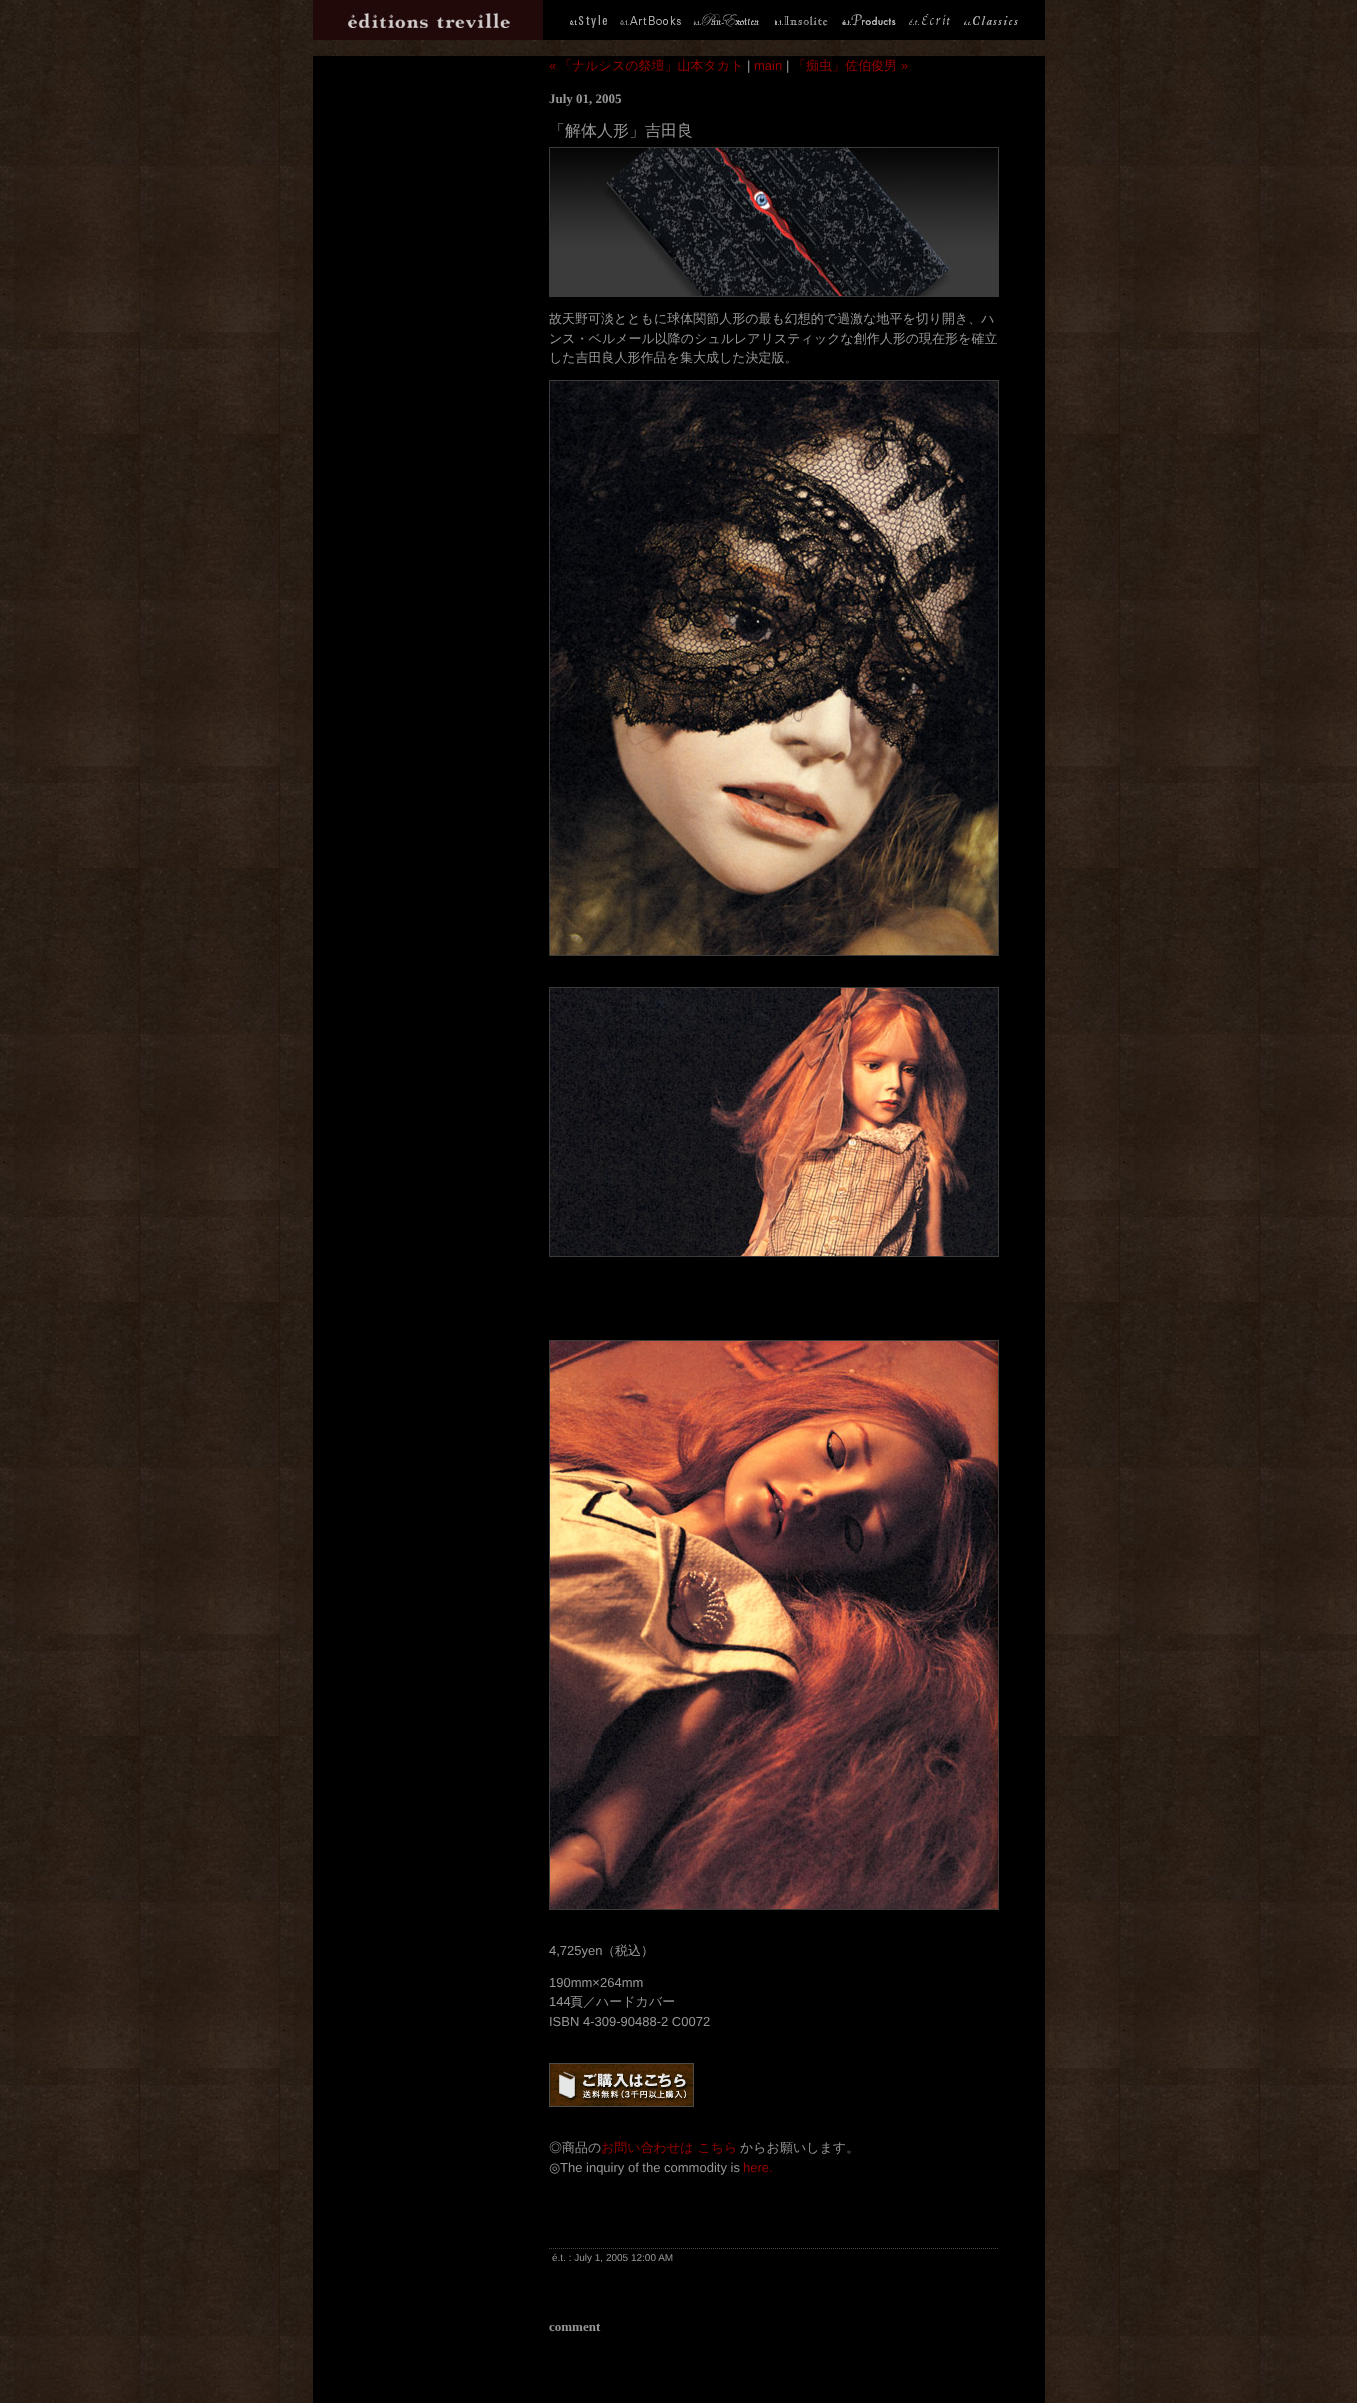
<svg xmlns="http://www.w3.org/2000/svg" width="1357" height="2403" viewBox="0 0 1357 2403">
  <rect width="100%" height="100%" fill="#fff"/>
  <image x="0" y="0" width="1357" height="2403" href="img/1.png"/>
  <path d="M543 0h502v40H543z" fill="#000"/>
  <image x="313" y="0" width="230" height="40" href="img/2.png"/>
  <image x="570" y="15" width="37" height="13" href="img/3.png"/>
  <image x="620" y="16" width="61" height="9" href="img/4.png"/>
  <image x="693" y="13" width="66" height="14" href="img/5.png"/>
  <image x="774" y="16" width="54" height="10" href="img/6.png"/>
  <image x="842" y="14" width="54" height="12" href="img/7.png"/>
  <image x="909" y="14" width="42" height="11" href="img/8.png"/>
  <image x="964" y="16" width="54" height="9" href="img/9.png"/>
  <path d="M313 56h732v2347H313z" fill="#000"/>
  <image x="549" y="147" width="450" height="150" href="img/10.png"/>
  <image x="549" y="380" width="450" height="576" href="img/11.png"/>
  <image x="549" y="987" width="450" height="270" href="img/12.png"/>
  <image x="549" y="1340" width="450" height="570" href="img/13.png"/>
  <image x="549" y="2063" width="145" height="44" href="img/14.png"/>
  <path d="M549 2248.5H999" fill="none" stroke="#484848" stroke-dasharray="1 1"/>
  <text x="549" y="70" font-family="Liberation Sans" font-size="13" fill="#900">«</text>
  <text x="559" y="70" font-family="WenQuanYi Zen Hei" font-size="13" font-weight="500" fill="#900">「ナルシスの祭壇」山本タカト</text>
  <text x="747" y="70" font-family="Liberation Sans" font-size="13" fill="#979797">|</text>
  <text x="754" y="70" font-family="Liberation Sans" font-size="13" fill="#900">main</text>
  <text x="786" y="70" font-family="Liberation Sans" font-size="13" fill="#979797">|</text>
  <text x="793" y="70" font-family="WenQuanYi Zen Hei" font-size="13" font-weight="500" fill="#900">「痴虫」佐伯俊男</text>
  <text x="901" y="70" font-family="Liberation Sans" font-size="13" fill="#900">»</text>
  <text x="549" y="103" font-family="Liberation Serif" font-size="13" font-weight="bold" fill="#979797">July 01, 2005</text>
  <text x="549" y="136" font-family="WenQuanYi Zen Hei" font-size="16" font-weight="500" fill="#979797">「解体人形」吉田良</text>
  <g font-family="WenQuanYi Zen Hei" font-size="13" font-weight="500" fill="#979797">
    <text x="549" y="323">故天野可淡とともに球体関節人形の最も幻想的で過激な地平を切り開き、ハ</text>
    <text x="549" y="343">ンス・ベルメール以降のシュルレアリスティックな創作人形の現在形を確立</text>
    <text x="549" y="362">した吉田良人形作品を集大成した決定版。</text>
  </g>
  <text x="549" y="1955" font-family="Liberation Sans" font-size="13" fill="#979797">4,725yen</text>
  <text x="602" y="1955" font-family="WenQuanYi Zen Hei" font-size="13" font-weight="500" fill="#979797">（税込）</text>
  <g font-family="Liberation Sans" font-size="13" fill="#979797">
    <text x="549" y="1987">190mm×264mm</text>
    <text x="549" y="2006">144</text>
  </g>
  <text x="570" y="2006" font-family="WenQuanYi Zen Hei" font-size="13" font-weight="500" fill="#979797">頁／ハードカバー</text>
  <text x="549" y="2026" font-family="Liberation Sans" font-size="13" fill="#979797">ISBN 4-309-90488-2 C0072</text>
  <text x="549" y="2152" font-family="WenQuanYi Zen Hei" font-size="13" font-weight="500" fill="#979797">◎商品の</text>
  <text x="601" y="2152" font-family="WenQuanYi Zen Hei" font-size="13" font-weight="500" fill="#900">お問い合わせは こちら</text>
  <text x="740" y="2152" font-family="WenQuanYi Zen Hei" font-size="13" font-weight="500" fill="#979797">からお願いします。</text>
  <text x="549" y="2172" font-family="DejaVu Sans" font-size="13" fill="#979797">◎</text>
  <text x="560" y="2172" font-family="Liberation Sans" font-size="13" fill="#979797">The inquiry of the commodity is</text>
  <text x="743" y="2172" font-family="Liberation Sans" font-size="13" fill="#900">here.</text>
  <text x="552" y="2261" font-family="Liberation Sans" font-size="10" fill="#979797">é.t. : July 1, 2005 12:00 AM</text>
  <text x="549" y="2331" font-family="Liberation Serif" font-size="13" font-weight="bold" fill="#979797">comment</text>
</svg>
